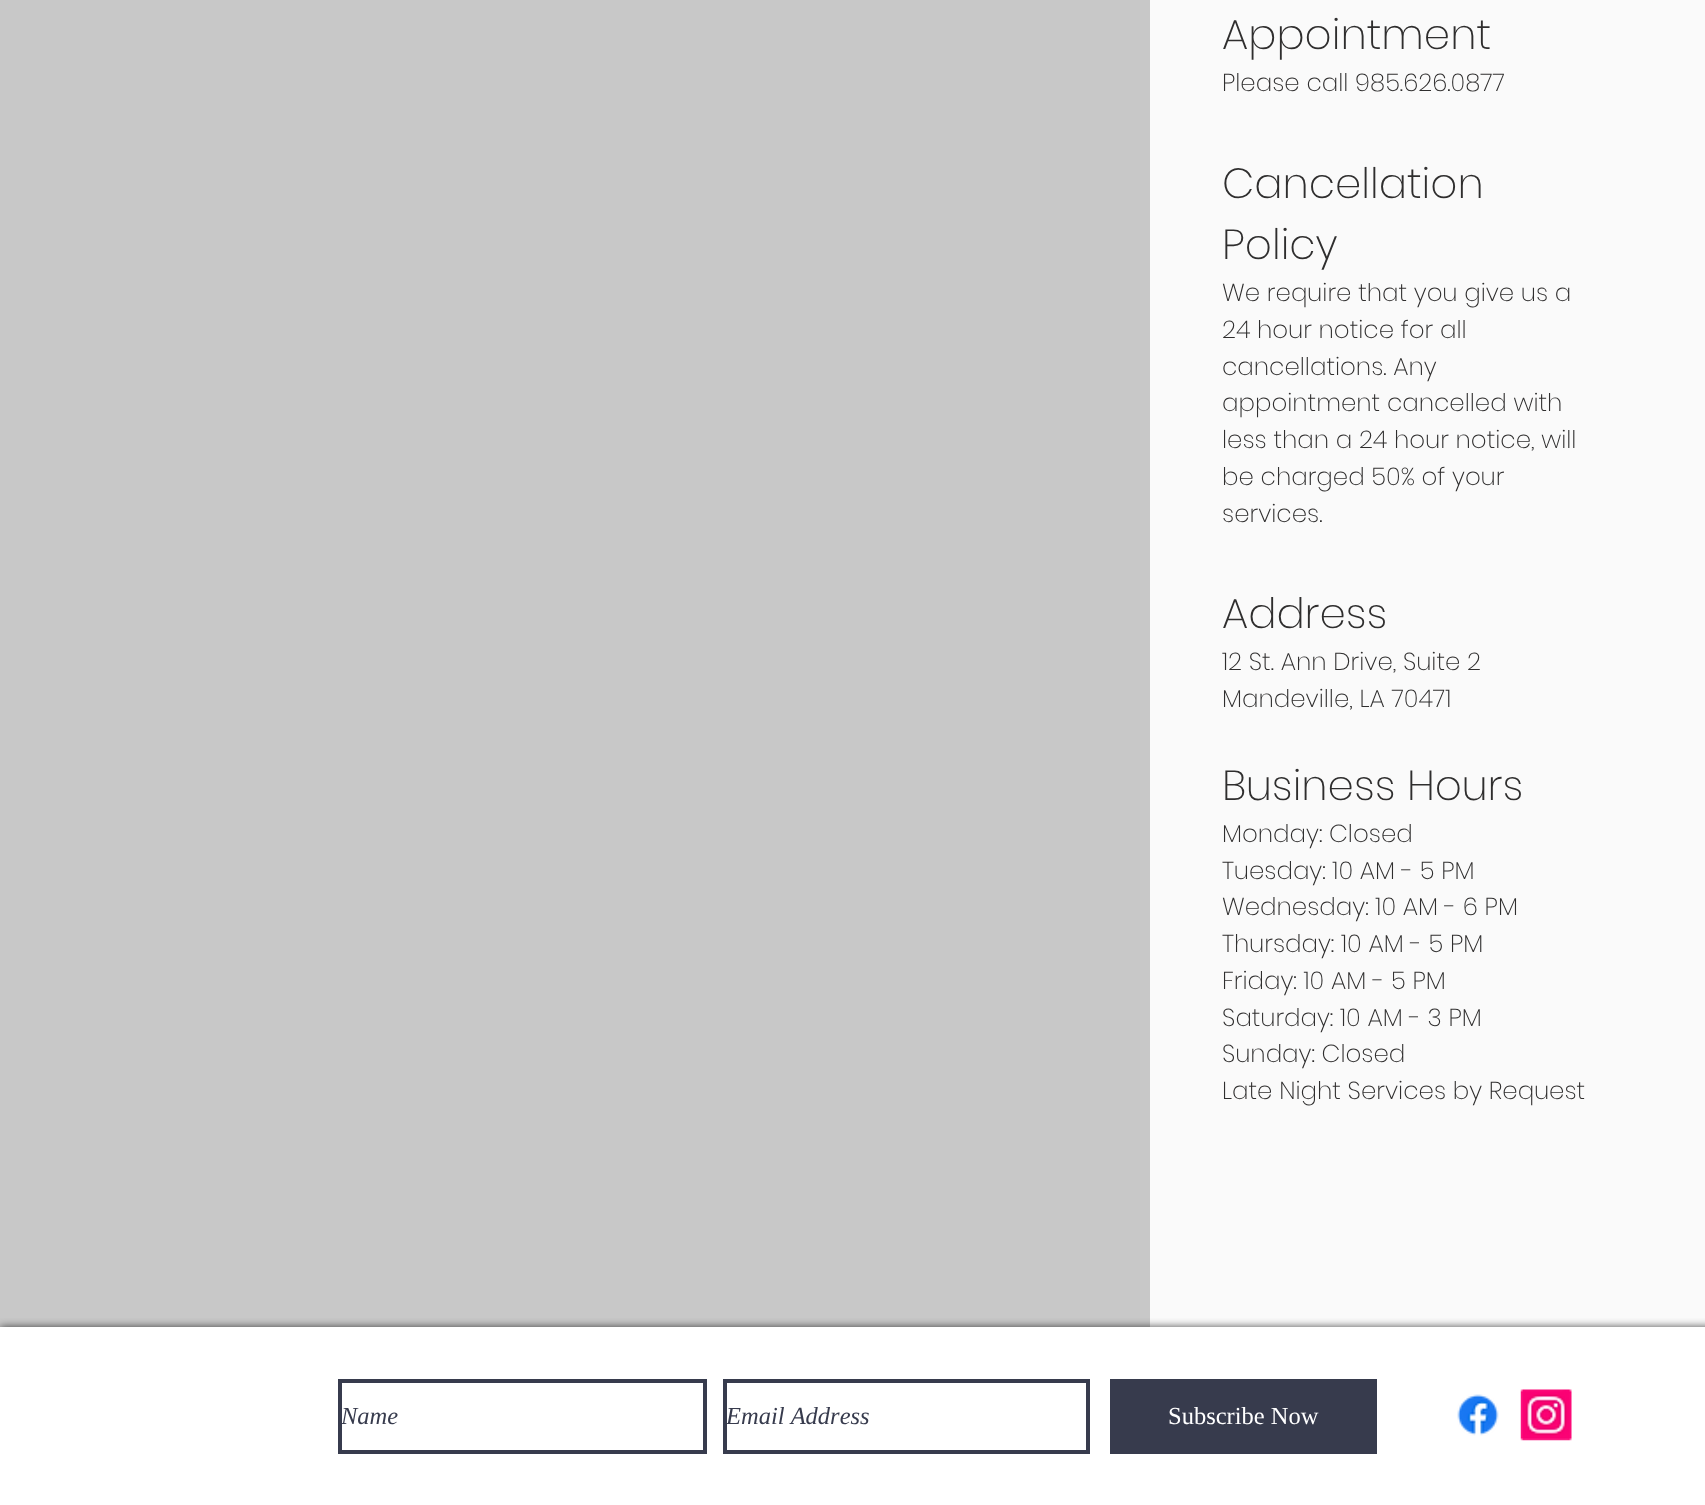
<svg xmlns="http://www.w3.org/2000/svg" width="1705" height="1505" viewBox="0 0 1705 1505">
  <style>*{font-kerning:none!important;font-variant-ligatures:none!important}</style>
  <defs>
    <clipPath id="clip1"><path d="M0 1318h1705v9H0z"/></clipPath>
  </defs>
  <rect width="100%" height="100%" fill="#fff"/>
  <path d="M0 0h1150v1327H0z" fill="#c8c8c8"/>
  <path d="M1150 0h555v1327H1150z" fill="#fafafa"/>
  <g clip-path="url(#clip1)">
    <path d="M0 1327h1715v178H0z" fill="#000000b3" filter="blur(4.5px)"/>
  </g>
  <path d="M340 1381h365v71H340z" fill="none" stroke="#373b4d" stroke-width="4"/>
  <path d="M725 1381h363v71H725z" fill="none" stroke="#373b4d" stroke-width="4"/>
  <path d="M1110 1379h267v75H1110z" fill="#373b4d"/>
  <image x="1457" y="1394" width="42" height="42" href="img/1.png"/>
  <image x="1520" y="1389" width="52" height="52" href="img/2.png"/>
  <text x="1222" y="49" font-family="Poppins" font-size="42" font-weight="200" fill="#2f2e2e">Appointment</text>
  <text x="1222" y="91" font-family="Poppins" font-size="24.5" font-weight="200" fill="#2f2e2e">Please call 985.626.0877</text>
  <g font-family="Poppins" font-size="42" font-weight="200" fill="#2f2e2e">
    <text x="1222" y="198">Cancellation</text>
    <text x="1222" y="259">Policy</text>
  </g>
  <g font-family="Poppins" font-size="24.5" font-weight="200" fill="#2f2e2e">
    <text x="1222" y="301">We require that you give us a</text>
    <text x="1222" y="338">24 hour notice for all</text>
    <text x="1222" y="375">cancellations. Any</text>
    <text x="1222" y="411">appointment cancelled with</text>
    <text x="1222" y="448">less than a 24 hour notice, will</text>
    <text x="1222" y="485">be charged 50% of your</text>
    <text x="1222" y="522">services.</text>
  </g>
  <text x="1222" y="628" font-family="Poppins" font-size="42" font-weight="200" fill="#2f2e2e">Address</text>
  <g font-family="Poppins" font-size="24.5" font-weight="200" fill="#2f2e2e">
    <text x="1222" y="670">12 St. Ann Drive, Suite 2</text>
    <text x="1222" y="707">Mandeville, LA 70471</text>
  </g>
  <text x="1222" y="800" font-family="Poppins" font-size="42" font-weight="200" fill="#2f2e2e">Business Hours</text>
  <g font-family="Poppins" font-size="24.5" font-weight="200" fill="#2f2e2e">
    <text x="1222" y="842">Monday: Closed</text>
    <text x="1222" y="879">Tuesday: 10 AM - 5 PM</text>
    <text x="1222" y="915">Wednesday: 10 AM - 6 PM</text>
    <text x="1222" y="952">Thursday: 10 AM - 5 PM</text>
    <text x="1222" y="989">Friday: 10 AM - 5 PM</text>
    <text x="1222" y="1026">Saturday: 10 AM - 3 PM</text>
    <text x="1222" y="1062">Sunday: Closed</text>
    <text x="1222" y="1099">Late Night Services by Request</text>
  </g>
  <g font-family="Liberation Serif" font-size="24.5" font-style="italic" fill="#373b4d">
    <text x="341" y="1424">Name</text>
    <text x="726" y="1424">Email Address</text>
  </g>
  <text x="1168" y="1424" font-family="Liberation Serif" font-size="24.5" fill="#fff">Subscribe Now</text>
</svg>
